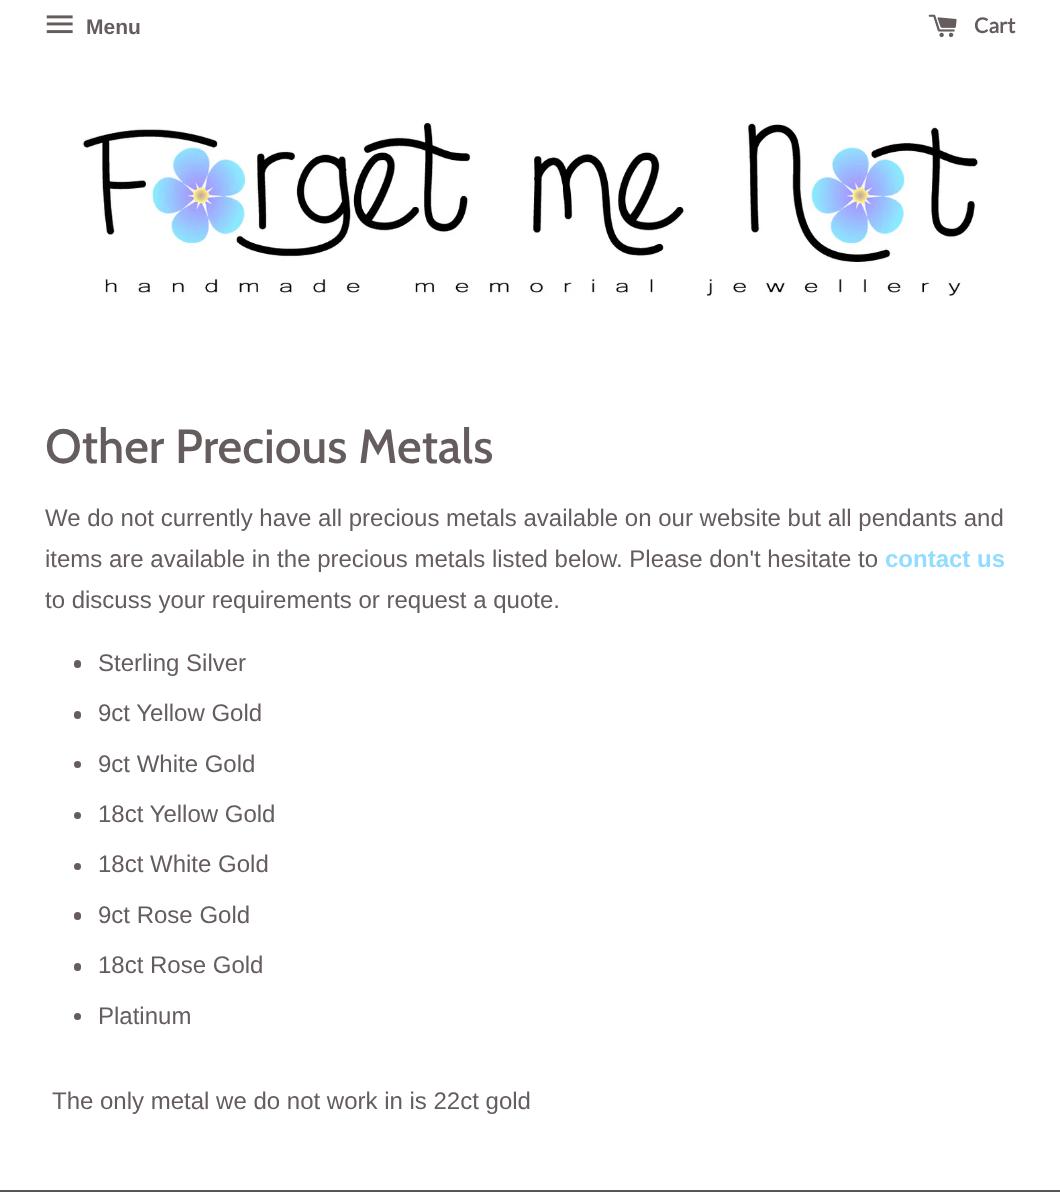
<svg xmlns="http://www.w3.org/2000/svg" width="1060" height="1201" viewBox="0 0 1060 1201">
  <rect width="100%" height="100%" fill="#fff"/>
  <image x="46" y="15" width="27" height="19" href="img/1.png"/>
  <image x="928" y="14" width="29" height="24" href="img/2.png"/>
  <image x="81" y="121" width="897" height="176" href="img/3.png"/>
  <rect x="74" y="660" width="7" height="8" rx="3.5" fill="#655d5d"/>
  <rect x="74" y="711" width="7" height="8" rx="3.5" fill="#655d5d"/>
  <circle cx="77.5" cy="764.5" r="3.5" fill="#655d5d"/>
  <circle cx="77.5" cy="815.5" r="3.5" fill="#655d5d"/>
  <circle cx="77.5" cy="866.5" r="3.5" fill="#655d5d"/>
  <rect x="74" y="912" width="7" height="8" rx="3.5" fill="#655d5d"/>
  <rect x="74" y="963" width="7" height="8" rx="3.5" fill="#655d5d"/>
  <circle cx="77.5" cy="1016.5" r="3.5" fill="#655d5d"/>
  <path d="M0 1190h1060v2H0z" fill="#55565b"/>
  <text x="86" y="34" font-family="Liberation Sans" font-size="21" font-weight="bold" fill="#655d5d">Menu</text>
  <text x="974" y="33" font-family="Lato" font-size="21" font-weight="bold" fill="#655d5d">Cart</text>
  <text x="45" y="463" font-family="Cabin" font-size="48" font-weight="500" fill="#655d5d">Other Precious Metals</text>
  <g font-family="Liberation Sans" font-size="24" fill="#655d5d">
    <text x="45" y="526">We do not currently have all precious metals available on our website but all pendants and</text>
    <text x="45" y="567">items are available in the precious metals listed below. Please don't hesitate to</text>
  </g>
  <text x="885" y="567" font-family="Liberation Sans" font-size="24" font-weight="bold" fill="#91dcff">contact us</text>
  <g font-family="Liberation Sans" font-size="24" fill="#655d5d">
    <text x="45" y="608">to discuss your requirements or request a quote.</text>
    <text x="98" y="671">Sterling Silver</text>
    <text x="98" y="721">9ct Yellow Gold</text>
    <text x="98" y="772">9ct White Gold</text>
    <text x="98" y="822">18ct Yellow Gold</text>
    <text x="98" y="872">18ct White Gold</text>
    <text x="98" y="923">9ct Rose Gold</text>
    <text x="98" y="973">18ct Rose Gold</text>
    <text x="98" y="1024">Platinum</text>
    <text x="52" y="1109">The only metal we do not work in is 22ct gold</text>
  </g>
</svg>
